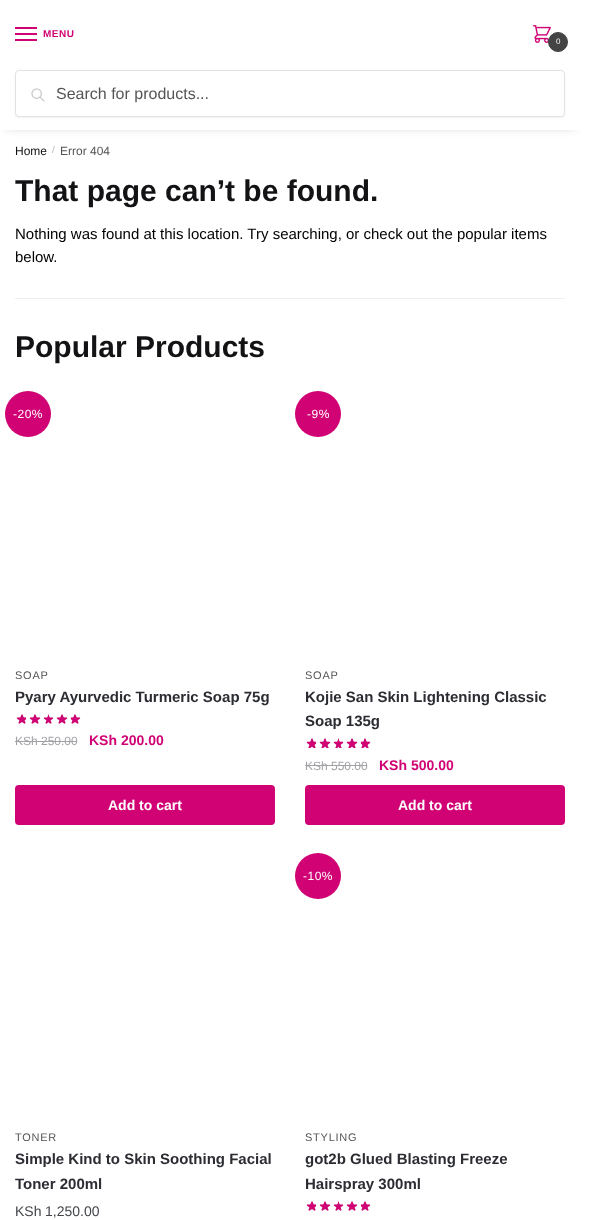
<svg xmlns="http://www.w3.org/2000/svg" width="595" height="1220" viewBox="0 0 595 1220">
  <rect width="100%" height="100%" fill="#fff"/>
  <path d="M15 27h22v2H15z" fill="#d10274"/>
  <path d="M15 33h22v2H15z" fill="#d10274"/>
  <path d="M15 39h22v2H15z" fill="#d10274"/>
  <image x="533" y="25" width="18" height="18" href="img/1.png"/>
  <circle cx="558" cy="42" r="9.5" fill="#444" stroke="#444"/>
  <path d="M5 78h570v50H5z" fill="#0000002e" filter="blur(5px)"/>
  <path d="M0 70h580v60H0z" fill="#fff"/>
  <rect x="15" y="71" width="550" height="47" rx="4" fill="#0000000d" filter="blur(1px)"/>
  <rect x="15.5" y="70.5" width="549" height="46" rx="3.5" fill="#fff" stroke="#e2e2e2"/>
  <image x="31" y="88" width="14" height="14" href="img/2.png"/>
  <path d="M580 77h3v52H580z" fill="#fff"/>
  <path d="M15 298h550v1H15z" fill="#eee"/>
  <circle cx="28" cy="414" r="23" fill="#d10274"/>
  <image x="16" y="714" width="64" height="10" href="img/3.png"/>
  <image x="16" y="714" width="65" height="10" href="img/4.png"/>
  <path d="M15 741h22v1H15z" fill="#a1a2a5"/>
  <path d="M37 741h40v1H37z" fill="#a1a2a5"/>
  <rect x="15" y="785" width="260" height="40" rx="4" fill="#d10274"/>
  <circle cx="318" cy="414" r="23" fill="#d10274"/>
  <image x="306" y="738" width="65" height="10" href="img/5.png"/>
  <image x="306" y="738" width="65" height="10" href="img/6.png"/>
  <path d="M305 765h22v1H305z" fill="#a1a2a5"/>
  <path d="M327 765h40v1H327z" fill="#a1a2a5"/>
  <rect x="305" y="785" width="260" height="40" rx="4" fill="#d10274"/>
  <circle cx="318" cy="876" r="23" fill="#d10274"/>
  <image x="306" y="1201" width="64" height="10" href="img/3.png"/>
  <image x="306" y="1201" width="65" height="10" href="img/4.png"/>
  <text x="43" y="37" font-family="Liberation Sans" font-size="10" font-weight="bold" letter-spacing="0.5" fill="#d10274">MENU</text>
  <text x="556" y="44" font-family="Liberation Sans" font-size="8" fill="#fff">0</text>
  <text x="56" y="99" font-family="Liberation Sans" font-size="16" fill="#555">Search for products...</text>
  <text x="15" y="155" font-family="Liberation Sans" font-size="12" fill="#131315">Home</text>
  <text x="52" y="153" font-family="Liberation Sans" font-size="10" fill="#bbb">/</text>
  <text x="60" y="155" font-family="Liberation Sans" font-size="12" fill="#555">Error 404</text>
  <text x="15" y="201" font-family="Liberation Sans" font-size="30" font-weight="bold" fill="#131315">That page can’t be found.</text>
  <g font-family="Liberation Sans" font-size="15" fill="#000">
    <text x="15" y="239">Nothing was found at this location. Try searching, or check out the popular items</text>
    <text x="15" y="262">below.</text>
  </g>
  <text x="15" y="357" font-family="Liberation Sans" font-size="30" font-weight="bold" fill="#131315">Popular Products</text>
  <text x="13" y="418" font-family="Liberation Sans" font-size="12" letter-spacing="0.5" fill="#fff">-20%</text>
  <text x="15" y="679" font-family="Liberation Sans" font-size="11" letter-spacing="0.75" fill="#555">SOAP</text>
  <text x="15" y="702" font-family="Liberation Sans" font-size="15" font-weight="bold" fill="#2c2d33">Pyary Ayurvedic Turmeric Soap 75g</text>
  <g font-family="Liberation Sans" font-size="12" fill="#a1a2a5">
    <text x="15" y="745">KSh</text>
    <text x="41" y="745">250.00</text>
  </g>
  <g font-family="Liberation Sans" font-size="14" font-weight="bold" fill="#d10274">
    <text x="89" y="745">KSh</text>
    <text x="121" y="745">200.00</text>
  </g>
  <text x="108" y="810" font-family="Liberation Sans" font-size="14" font-weight="bold" fill="#fff">Add to cart</text>
  <text x="307" y="418" font-family="Liberation Sans" font-size="12" letter-spacing="0.5" fill="#fff">-9%</text>
  <text x="305" y="679" font-family="Liberation Sans" font-size="11" letter-spacing="0.75" fill="#555">SOAP</text>
  <g font-family="Liberation Sans" font-size="15" font-weight="bold" fill="#2c2d33">
    <text x="305" y="702">Kojie San Skin Lightening Classic</text>
    <text x="305" y="726">Soap 135g</text>
  </g>
  <g font-family="Liberation Sans" font-size="12" fill="#a1a2a5">
    <text x="305" y="770">KSh</text>
    <text x="331" y="770">550.00</text>
  </g>
  <g font-family="Liberation Sans" font-size="14" font-weight="bold" fill="#d10274">
    <text x="379" y="770">KSh</text>
    <text x="411" y="770">500.00</text>
  </g>
  <text x="398" y="810" font-family="Liberation Sans" font-size="14" font-weight="bold" fill="#fff">Add to cart</text>
  <text x="15" y="1141" font-family="Liberation Sans" font-size="11" letter-spacing="0.75" fill="#555">TONER</text>
  <g font-family="Liberation Sans" font-size="15" font-weight="bold" fill="#2c2d33">
    <text x="15" y="1164">Simple Kind to Skin Soothing Facial</text>
    <text x="15" y="1189">Toner 200ml</text>
  </g>
  <g font-family="Liberation Sans" font-size="14" fill="#43454b">
    <text x="15" y="1216">KSh</text>
    <text x="45" y="1216">1,250.00</text>
  </g>
  <text x="303" y="880" font-family="Liberation Sans" font-size="12" letter-spacing="0.5" fill="#fff">-10%</text>
  <text x="305" y="1141" font-family="Liberation Sans" font-size="11" letter-spacing="0.75" fill="#555">STYLING</text>
  <g font-family="Liberation Sans" font-size="15" font-weight="bold" fill="#2c2d33">
    <text x="305" y="1164">got2b Glued Blasting Freeze</text>
    <text x="305" y="1189">Hairspray 300ml</text>
  </g>
</svg>
